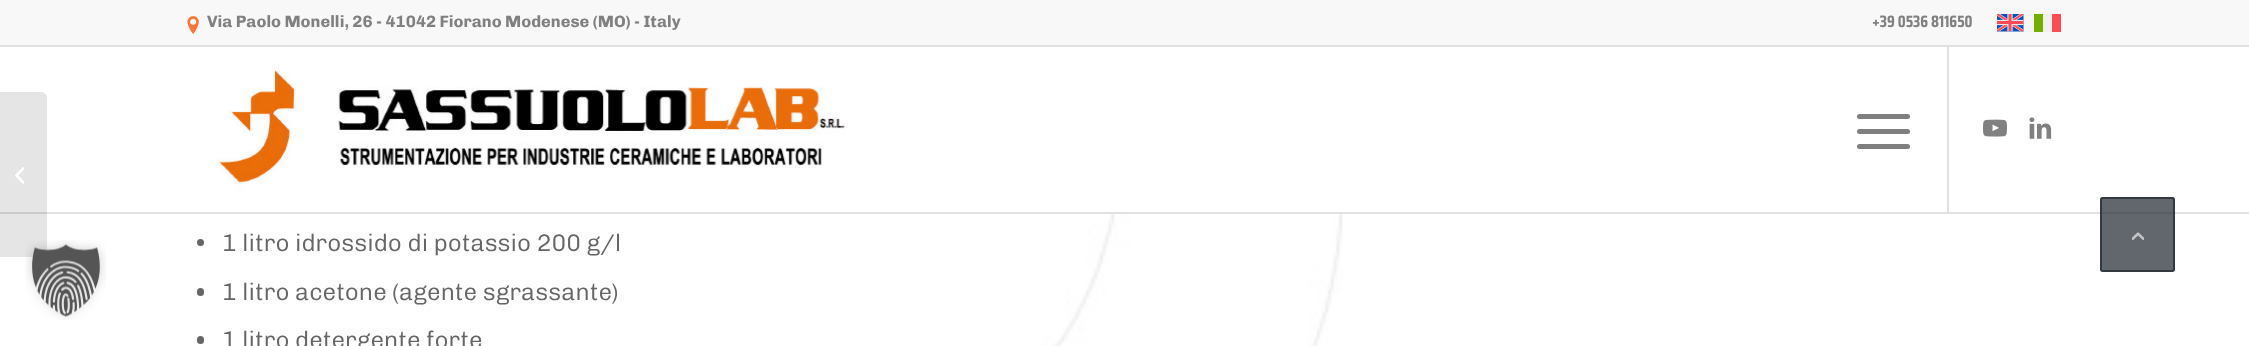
<svg xmlns="http://www.w3.org/2000/svg" width="2249" height="346" viewBox="0 0 2249 346">
  <rect width="100%" height="100%" fill="#fff"/>
  <image x="742" y="47" width="603" height="299" href="img/8.png"/>
  <path d="M0 212h2249v2H0z" fill="#e1e1e1"/>
  <path d="M0 92H41C44.5 92 47 94.5 47 98V251C47 254.5 44.5 257 41 257H0Z" fill="#0000001a"/>
  <image x="25" y="240" width="81" height="80" href="img/1.png"/>
  <path d="M0 0h2249v45H0z" fill="#f8f8f8"/>
  <path d="M0 45h2249v2H0z" fill="#e1e1e1"/>
  <image x="187" y="16" width="12" height="18" href="img/2.png"/>
  <image x="1997" y="14" width="27" height="18" href="img/3.png"/>
  <path d="M2043 14h9v18H2043z" fill="#f0f0f0"/>
  <path d="M2052 14h9v18H2052z" fill="#ff4b55"/>
  <path d="M2034 14h9v18H2034z" fill="#73af00"/>
  <path d="M786 47h559v165H786z" fill="#fffffff2"/>
  <image x="197" y="47" width="649" height="160" href="img/4.png"/>
  <path d="M1947 47h2v165H1947z" fill="#e1e1e1"/>
  <rect x="1857" y="129" width="53" height="5" rx="2.5" fill="#808080"/>
  <rect x="1857" y="114" width="53" height="5" rx="2.5" fill="#808080"/>
  <rect x="1857" y="144" width="53" height="5" rx="2.5" fill="#808080"/>
  <image x="1983" y="119" width="24" height="18" href="img/5.png"/>
  <image x="2029" y="117" width="23" height="22" href="img/6.png"/>
  <image x="15" y="167" width="9" height="17" href="img/7.png"/>
  <circle cx="200.5" cy="242.5" r="3.5" fill="#666"/>
  <rect x="197" y="288" width="7" height="8" rx="3.5" fill="#666"/>
  <rect x="197" y="336" width="7" height="8" rx="3.5" fill="#666"/>
  <rect x="2100" y="197" width="75" height="75" rx="3" fill="#20272fb3"/>
  <rect x="2101" y="198" width="73" height="73" rx="2" fill="none" stroke="#20272fb3" stroke-width="2"/>
  <image x="2132" y="232" width="12" height="8" href="img/9.png"/>
  <text x="207" y="27" font-family="Chivo" font-size="16.5" font-weight="bold" fill="#808080">Via Paolo Monelli, 26 - 41042 Fiorano Modenese (MO) - Italy</text>
  <text x="1872" y="27" font-family="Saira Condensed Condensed" font-size="16.5" font-weight="bold" fill="#808080">+39 0536 811650</text>
  <g font-family="Chivo" font-size="24" font-weight="300" fill="#666">
    <text x="222" y="251">1 litro idrossido di potassio 200 g/l</text>
    <text x="222" y="300">1 litro acetone (agente sgrassante)</text>
    <text x="222" y="348">1 litro detergente forte</text>
  </g>
</svg>
